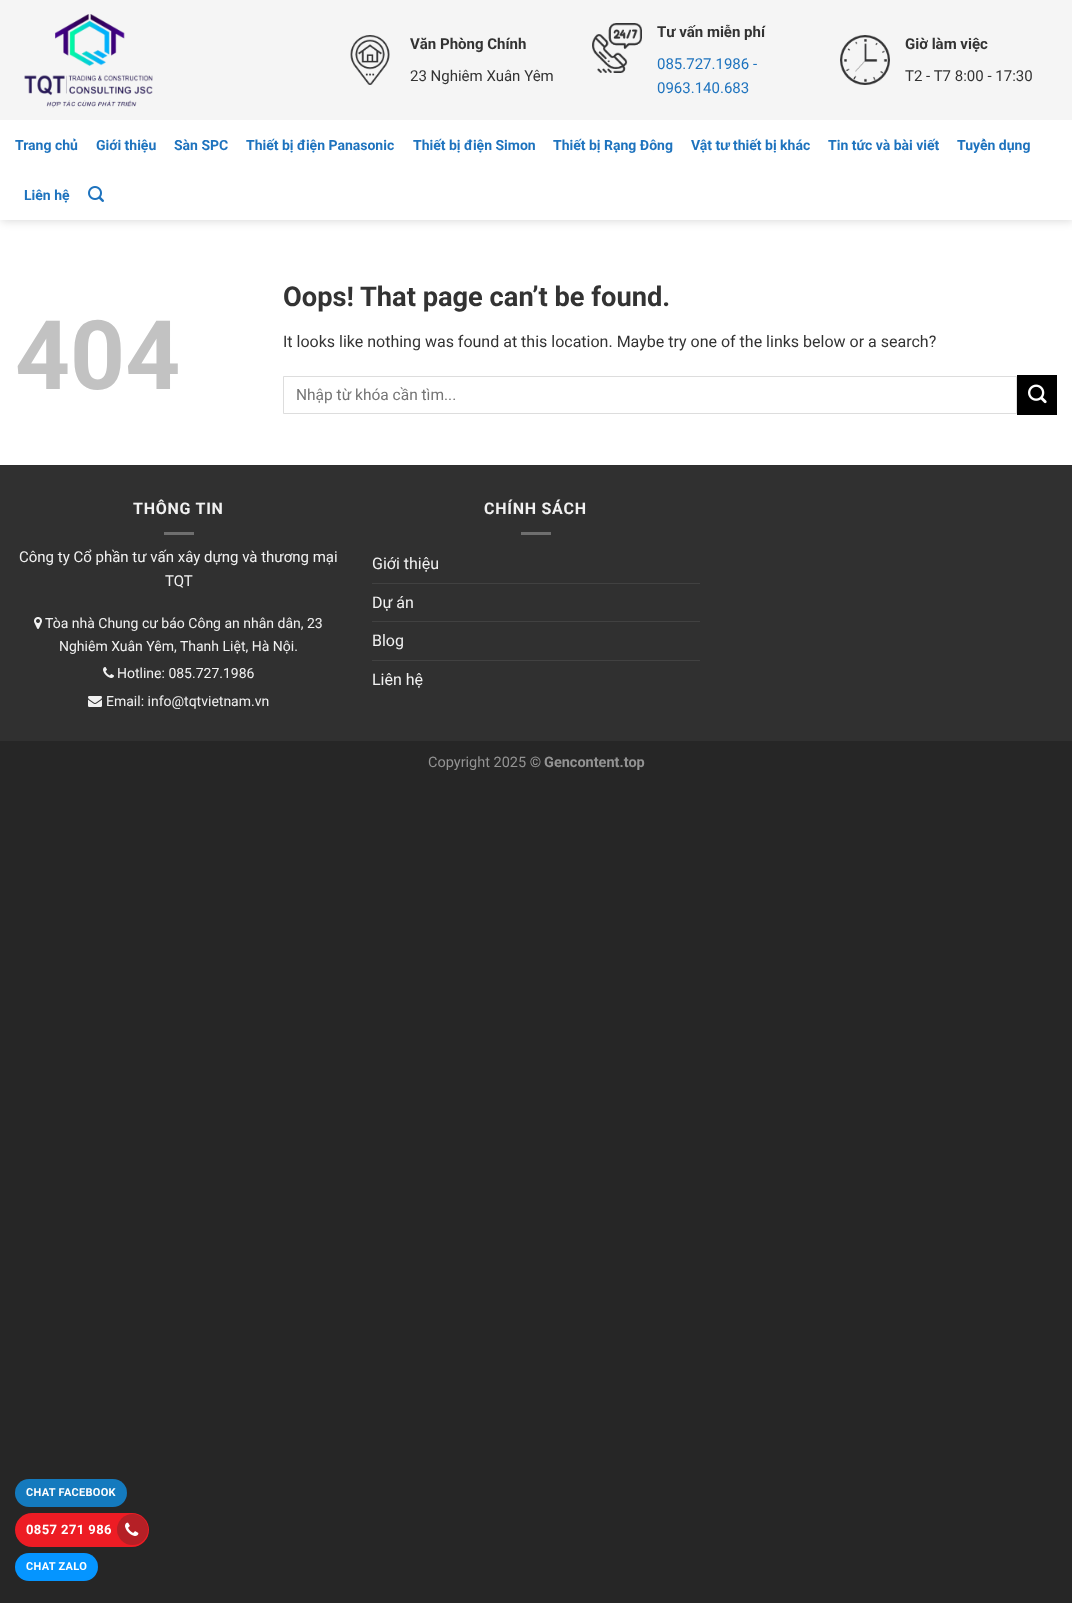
<svg xmlns="http://www.w3.org/2000/svg" width="1072" height="1603" viewBox="0 0 1072 1603">
  <rect width="100%" height="100%" fill="#262626"/>
  <path d="M0 220h1072v245H0z" fill="#fff"/>
  <path d="M1 1h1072v220H1z" fill="#00000026" filter="blur(5px)"/>
  <path d="M0 0h1072v120H0z" fill="#f5f5f5"/>
  <image x="24" y="14" width="129" height="94" href="img/1.png"/>
  <image x="350" y="35" width="40" height="50" href="img/2.png"/>
  <image x="592" y="23" width="50" height="50" href="img/3.png"/>
  <image x="840" y="35" width="50" height="50" href="img/4.png"/>
  <path d="M0 120h1072v100H0z" fill="#fff"/>
  <image x="88" y="186" width="16" height="16" href="img/5.png"/>
  <path d="M283.5 376.5h733v37H283.5z" fill="none" stroke="#ddd"/>
  <path d="M1017 375h40v40H1017z" fill="#000"/>
  <image x="1028" y="384" width="19" height="20" href="img/6.png"/>
  <path d="M0 466h1072v275H0z" fill="#303030"/>
  <path d="M0 465h1072v1H0z" fill="#2e2e2e"/>
  <path d="M164 532h30v3H164z" fill="#6e6e6e"/>
  <image x="34" y="617" width="8" height="12" href="img/7.png"/>
  <image x="103" y="667" width="11" height="11" href="img/8.png"/>
  <image x="88" y="696" width="14" height="11" href="img/9.png"/>
  <path d="M521 532h30v3H521z" fill="#6e6e6e"/>
  <path d="M372 583h328v1H372z" fill="#414141"/>
  <path d="M372 621h328v1H372z" fill="#414141"/>
  <path d="M372 660h328v1H372z" fill="#414141"/>
  <rect x="15" y="1479" width="112" height="28" rx="14" fill="#147abe"/>
  <rect x="15" y="1513" width="134" height="34" rx="17" fill="#ed1c24"/>
  <circle cx="132.5" cy="1529.5" r="15.5" fill="#b52026"/>
  <image x="125" y="1522" width="14" height="14" href="img/10.png"/>
  <rect x="15" y="1553" width="83" height="28" rx="14" fill="#0595ff"/>
  <text x="410" y="49" font-family="Roboto" font-size="15" font-weight="bold" fill="#333">Văn Phòng Chính</text>
  <text x="410" y="81" font-family="Roboto" font-size="15" fill="#333">23 Nghiêm Xuân Yêm</text>
  <text x="657" y="37" font-family="Roboto" font-size="15" font-weight="bold" fill="#333">Tư vấn miễn phí</text>
  <g font-family="Roboto" font-size="15" fill="#1e73be">
    <text x="657" y="69">085.727.1986 -</text>
    <text x="657" y="93">0963.140.683</text>
  </g>
  <text x="905" y="49" font-family="Roboto" font-size="15" font-weight="bold" fill="#333">Giờ làm việc</text>
  <text x="905" y="81" font-family="Roboto" font-size="15" fill="#333">T2 - T7 8:00 - 17:30</text>
  <g font-family="Roboto" font-size="14" font-weight="bold" fill="#1e73be">
    <text x="15" y="150">Trang chủ</text>
    <text x="96" y="150">Giới thiệu</text>
    <text x="174" y="150">Sàn SPC</text>
    <text x="246" y="150">Thiết bị điện Panasonic</text>
    <text x="413" y="150">Thiết bị điện Simon</text>
    <text x="553" y="150">Thiết bị Rạng Đông</text>
    <text x="691" y="150">Vật t</text>
  </g>
  <text x="720" y="150" font-family="Liberation Sans" font-size="14" font-weight="bold" fill="#1e73be">ư</text>
  <g font-family="Roboto" font-size="14" font-weight="bold" fill="#1e73be">
    <text x="733" y="150">thiết bị khác</text>
    <text x="828" y="150">Tin tức và bài viết</text>
    <text x="957" y="150">Tuyển dụng</text>
    <text x="24" y="200">Liên hệ</text>
  </g>
  <text x="15" y="389" font-family="Roboto" font-size="96" font-weight="bold" fill="#c2c2c2">404</text>
  <text x="283" y="306" font-family="Roboto" font-size="27.25" font-weight="bold" fill="#333">Oops! That page can’t be found.</text>
  <text x="283" y="347" font-family="Roboto" font-size="16" fill="#333">It looks like nothing was found at this location. Maybe try one of the links below or a search?</text>
  <text x="296" y="400" font-family="Roboto" font-size="15.5" fill="#757575">Nhập từ khóa cần tìm...</text>
  <text x="133" y="514" font-family="Roboto" font-size="16" font-weight="bold" letter-spacing="0.75" fill="#f1f1f1">THÔNG TIN</text>
  <g font-family="Roboto" font-size="15" fill="#f1f1f1">
    <text x="19" y="562">Công ty Cổ phần tư vấn xây dựng và thương mại</text>
    <text x="165" y="586">TQT</text>
  </g>
  <g font-family="Roboto" font-size="14" fill="#f1f1f1">
    <text x="45" y="628">Tòa nhà Chung cư báo Công an nhân dân, 23</text>
    <text x="59" y="651">Nghiêm Xuân Yêm, Thanh Liệt, Hà Nội.</text>
    <text x="117" y="678">Hotline: 085.727.1986</text>
    <text x="106" y="706">Email: info@tqtvietnam.vn</text>
  </g>
  <text x="484" y="514" font-family="Roboto" font-size="16" font-weight="bold" letter-spacing="0.75" fill="#f1f1f1">CHÍNH SÁCH</text>
  <g font-family="Roboto" font-size="16" fill="#f1f1f1">
    <text x="372" y="569">Giới thiệu</text>
    <text x="372" y="608">Dự án</text>
    <text x="372" y="646">Blog</text>
    <text x="372" y="685">Liên hệ</text>
  </g>
  <text x="26" y="1496" font-family="Roboto" font-size="11" font-weight="bold" letter-spacing="0.3" fill="#fff">CHAT FACEBOOK</text>
  <text x="26" y="1534" font-family="Roboto" font-size="13" font-weight="bold" letter-spacing="0.4" fill="#fff">0857 271 986</text>
  <text x="26" y="1570" font-family="Roboto" font-size="11" font-weight="bold" letter-spacing="0.3" fill="#fff">CHAT ZALO</text>
  <text x="428" y="767" font-family="Roboto" font-size="14.5" fill="#939393">Copyright 2025 ©</text>
  <text x="544" y="767" font-family="Roboto" font-size="14.5" font-weight="bold" fill="#939393">Gencontent.top</text>
</svg>
